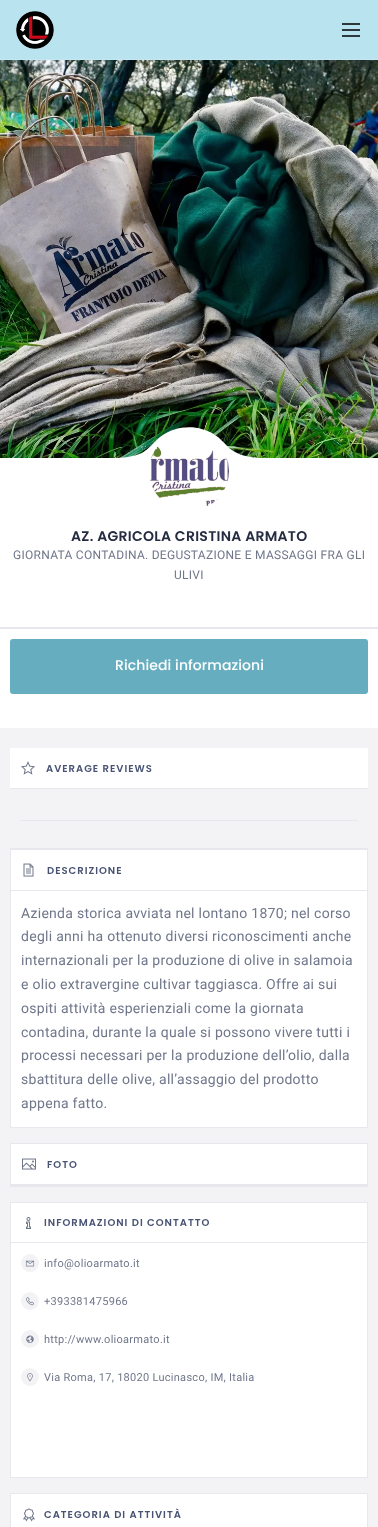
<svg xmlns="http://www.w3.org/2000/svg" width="378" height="1527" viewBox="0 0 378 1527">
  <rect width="100%" height="100%" fill="#fff"/>
  <path d="M0 0h378v59H0z" fill="#bae3f0"/>
  <image x="16" y="11" width="38" height="38" href="img/1.png"/>
  <image x="342" y="23" width="18" height="14" href="img/2.png"/>
  <path d="M0 59h378v1H0z" fill="#c4e7f2"/>
  <image x="0" y="60" width="378" height="398" href="img/3.png"/>
  <path d="M228 447C224 443 220 438 215 435C198 424 176 425 160 437C154 442 149 449 142 453C133 457 123 458 113 458V481H265V458C251 458 238 456 228 447Z" fill="#fff"/>
  <image x="150" y="446" width="79" height="60" href="img/4.png"/>
  <path d="M0 627h378v2H0z" fill="#e7e7ed"/>
  <rect x="10" y="639" width="358" height="55" rx="3" fill="#66aebf"/>
  <path d="M0 728h378v799H0z" fill="#f3f3f6"/>
  <path d="M10 748h358v40H10z" fill="#fff"/>
  <path d="M10 788h358v1H10z" fill="#e7e7ed"/>
  <image x="21" y="761" width="14" height="14" href="img/5.png"/>
  <path d="M20 820h338v1H20z" fill="#e7e7ed"/>
  <path d="M10 848h358v1H10z" fill="#e7e7ed"/>
  <path d="M10.5 849.5h357v278H10.5z" fill="#fff" stroke="#e7e7ed"/>
  <path d="M11 890h356v1H11z" fill="#e7e7ed"/>
  <image x="23" y="863" width="11" height="14" href="img/6.png"/>
  <path d="M11 1144h356v40H11z" fill="#fff"/>
  <path d="M10.5 1143.5h357v43H10.5z" fill="none" stroke="#e7e7ed"/>
  <path d="M11 1184h356v2H11z" fill="#e7e7ed"/>
  <image x="22" y="1158" width="14" height="12" href="img/7.png"/>
  <path d="M10.5 1202.5h357v275H10.5z" fill="#fff" stroke="#e7e7ed"/>
  <path d="M11 1242h356v1H11z" fill="#e7e7ed"/>
  <image x="26" y="1217" width="5" height="12" href="img/8.png"/>
  <circle cx="30" cy="1263" r="9" fill="#f3f3f6"/>
  <image x="25" y="1260" width="10" height="7" href="img/9.png"/>
  <circle cx="30" cy="1301" r="9" fill="#f3f3f6"/>
  <image x="26" y="1297" width="8" height="9" href="img/10.png"/>
  <circle cx="30" cy="1339" r="9" fill="#f3f3f6"/>
  <image x="26" y="1335" width="8" height="8" href="img/11.png"/>
  <circle cx="30" cy="1377" r="9" fill="#f3f3f6"/>
  <image x="27" y="1373" width="6" height="9" href="img/12.png"/>
  <path d="M10.5 1493.5h357v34H10.5z" fill="#fff" stroke="#e7e7ed"/>
  <image x="23" y="1508" width="12" height="14" href="img/13.png"/>
  <text x="71" y="541" font-family="Poppins" font-size="14" font-weight="600" letter-spacing="0.28" fill="#252c41">AZ. AGRICOLA CRISTINA ARMATO</text>
  <g font-family="Roboto" font-size="12" letter-spacing="0.28" fill="#70778b">
    <text x="13" y="559">GIORNATA CONTADINA. DEGUSTAZIONE E MASSAGGI FRA GLI</text>
    <text x="174" y="579">ULIVI</text>
  </g>
  <text x="115" y="670" font-family="Poppins" font-size="14" font-weight="500" letter-spacing="0.1" fill="#fff">Richiedi informazioni</text>
  <g font-family="Poppins" font-size="10" font-weight="600" letter-spacing="1" fill="#485273">
    <text x="46" y="772">AVERAGE REVIEWS</text>
    <text x="47" y="874">DESCRIZIONE</text>
  </g>
  <g font-family="Roboto" font-size="14" letter-spacing="0.28" fill="#70778b">
    <text x="21" y="918">Azienda storica avviata nel lontano 1870; nel corso</text>
    <text x="21" y="941">degli anni ha ottenuto diversi riconoscimenti anche</text>
    <text x="21" y="965">internazionali per la produzione di olive in salamoia</text>
    <text x="21" y="989">e olio extravergine cultivar taggiasca. Offre ai sui</text>
    <text x="21" y="1013">ospiti attività esperienziali come la giornata</text>
    <text x="21" y="1037">contadina, durante la quale si possono vivere tutti i</text>
    <text x="21" y="1060">processi necessari per la produzione dell’olio, dalla</text>
    <text x="21" y="1084">sbattitura delle olive, all’assaggio del prodotto</text>
    <text x="21" y="1108">appena fatto.</text>
  </g>
  <g font-family="Poppins" font-size="10" font-weight="600" letter-spacing="1" fill="#485273">
    <text x="47" y="1168">FOTO</text>
    <text x="44" y="1226">INFORMAZIONI DI CONTATTO</text>
  </g>
  <g font-family="Roboto" font-size="11" letter-spacing="0.28" fill="#70778b">
    <text x="44" y="1267">info@olioarmato.it</text>
    <text x="44" y="1305">+393381475966</text>
    <text x="44" y="1343">http://www.olioarmato.it</text>
    <text x="44" y="1381">Via Roma, 17, 18020 Lucinasco, IM, Italia</text>
  </g>
  <text x="44" y="1518" font-family="Poppins" font-size="10" font-weight="600" letter-spacing="1" fill="#485273">CATEGORIA DI ATTIVITÀ</text>
</svg>
